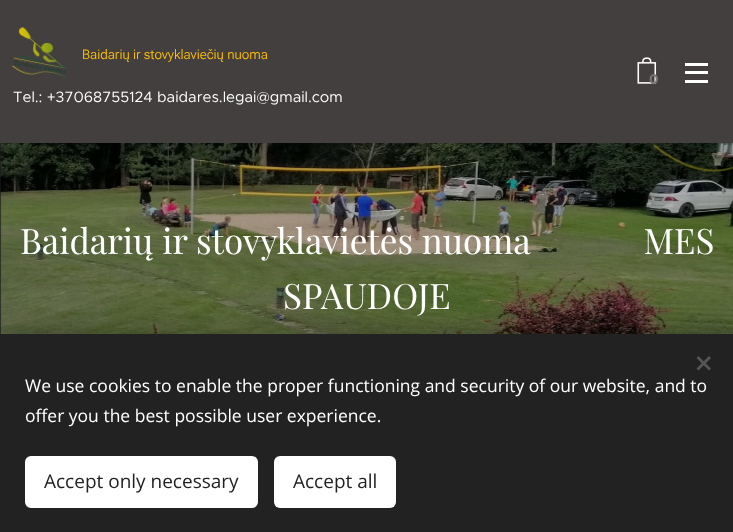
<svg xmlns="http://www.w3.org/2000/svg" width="733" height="532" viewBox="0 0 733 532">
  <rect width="100%" height="100%" fill="#1b1b1b"/>
  <path d="M0 0h733v143H0z" fill="#443f3f"/>
  <image x="12" y="27" width="55" height="51" href="img/1.png"/>
  <image x="637" y="57" width="20" height="27" href="img/2.png"/>
  <path d="M685 71h23v3H685z" fill="#fff"/>
  <path d="M685 63h23v3H685z" fill="#fff"/>
  <path d="M685 80h23v3H685z" fill="#fff"/>
  <image x="0" y="143" width="733" height="191" href="img/3.png"/>
  <path d="M0 334h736v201H0z" fill="#00000054" filter="blur(15.5px)"/>
  <path d="M0 334h733v198H0z" fill="#222"/>
  <path d="M696.5 368.5L709 356L711 358L698.5 370.5Z" fill="#555"/>
  <path d="M698.5 356L711 368.5L709 370.5L696.5 358Z" fill="#555"/>
  <rect x="25" y="456" width="233" height="52" rx="6" fill="#fff"/>
  <rect x="274" y="456" width="122" height="52" rx="6" fill="#fff"/>
  <text x="82" y="59" font-family="Roboto Flex" font-size="13.25" font-weight="300" fill="#ffc000">Baidarių ir stovyklaviečių nuoma</text>
  <text x="13" y="102" font-family="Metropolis" font-size="15" fill="#fff">Tel.: +37068755124 baidares.legai@gmail.com</text>
  <text x="649" y="84" font-family="Montserrat" font-size="14" font-weight="bold" fill="#777373">0</text>
  <g font-family="Playfair Display" font-size="35" fill="#fff">
    <text x="20" y="254" xml:space="preserve">Baidarių ir stovyklavietės nuoma             MES</text>
    <text x="283" y="309">SPAUDOJE</text>
  </g>
  <g font-family="Open Sans" font-size="17.5" fill="#fff">
    <text x="25" y="392">We use cookies to enable the proper functioning and security of our website, and to</text>
    <text x="25" y="422">offer you the best possible user experience.</text>
  </g>
  <g font-family="Open Sans" font-size="19" fill="#222">
    <text x="44" y="488">Accept only necessary</text>
    <text x="293" y="488">Accept all</text>
  </g>
</svg>
